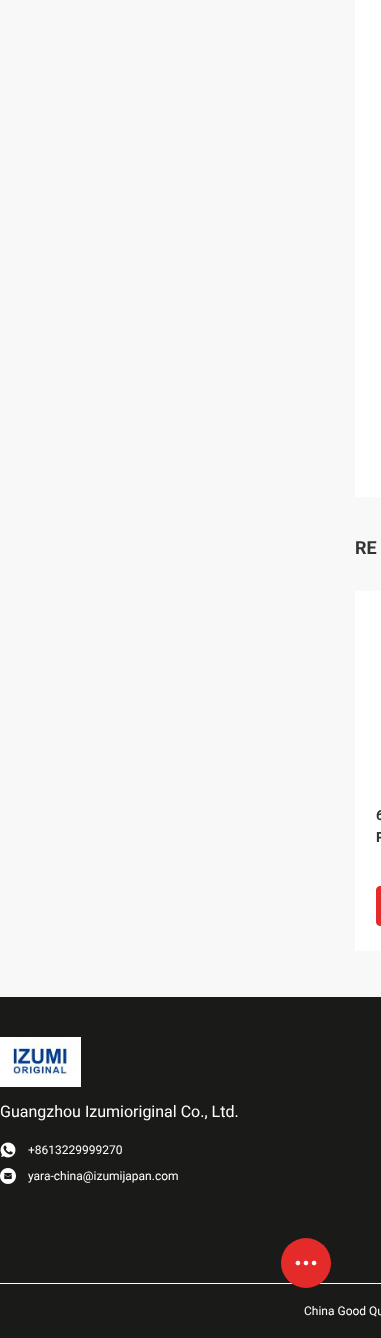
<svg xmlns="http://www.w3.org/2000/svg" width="381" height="1338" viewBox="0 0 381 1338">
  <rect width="100%" height="100%" fill="#f8f8f8"/>
  <path d="M355 0h26v497H355z" fill="#fff"/>
  <path d="M355 591h26v360H355z" fill="#fff"/>
  <rect x="376.5" y="886.5" width="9" height="39" rx="3.5" fill="#e52a2a" stroke="#e52a2a"/>
  <path d="M0 997h381v341H0z" fill="#1a1a19"/>
  <image x="0" y="1037" width="81" height="50" href="img/1.png"/>
  <image x="0" y="1142" width="16" height="16" href="img/2.png"/>
  <image x="0" y="1168" width="16" height="16" href="img/3.png"/>
  <path d="M0 1283h381v1H0z" fill="#fff"/>
  <circle cx="306" cy="1263" r="25" fill="#e52a2a"/>
  <image x="295" y="1260" width="22" height="6" href="img/4.png"/>
  <text x="355" y="554" font-family="Roboto" font-size="18" font-weight="bold" fill="#333">RE</text>
  <g font-family="Roboto" font-size="14" font-weight="bold" fill="#333">
    <text x="376" y="820">6</text>
    <text x="376" y="842">P</text>
  </g>
  <text x="0" y="1117" font-family="Roboto" font-size="16" fill="#fff">Guangzhou Izumioriginal Co., Ltd.</text>
  <g font-family="Roboto" font-size="12" fill="#fff">
    <text x="28" y="1154">+8613229999270</text>
    <text x="28" y="1180">yara-china@izumijapan.com</text>
    <text x="304" y="1315">China Good Qu</text>
  </g>
</svg>
